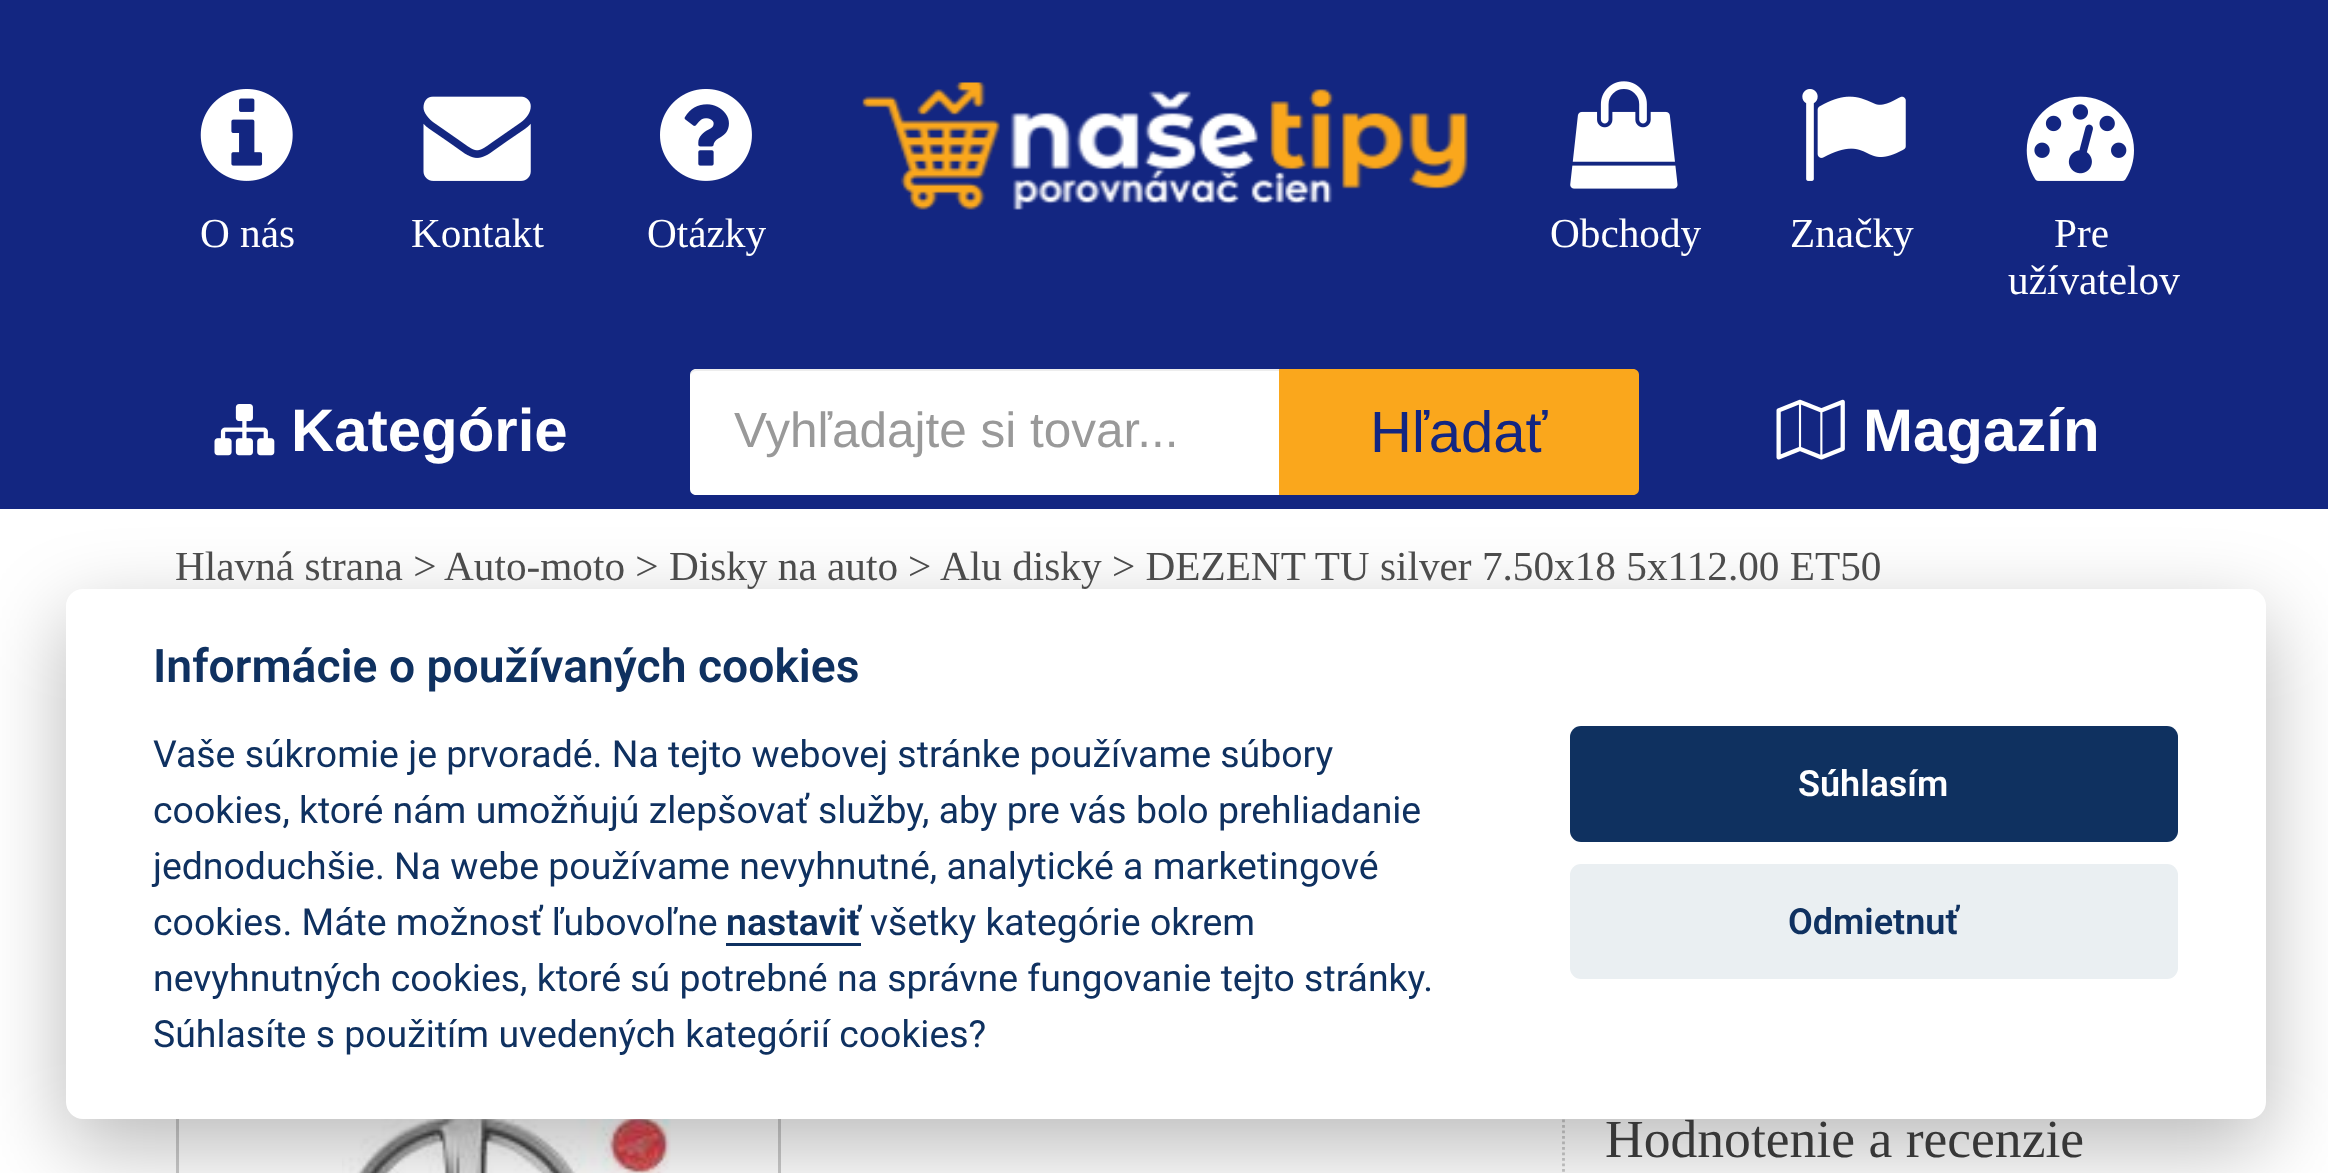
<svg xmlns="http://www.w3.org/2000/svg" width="2328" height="1173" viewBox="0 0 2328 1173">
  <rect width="100%" height="100%" fill="#fff"/>
  <path d="M0 0h2328v509H0z" fill="#132681"/>
  <image x="862" y="82" width="606" height="128" href="img/1.png"/>
  <image x="200" y="89" width="93" height="92" href="img/2.png"/>
  <image x="423" y="96" width="108" height="85" href="img/3.png"/>
  <image x="660" y="89" width="92" height="92" href="img/4.png"/>
  <image x="1570" y="81" width="108" height="108" href="img/5.png"/>
  <image x="1802" y="89" width="104" height="92" href="img/6.png"/>
  <image x="2026" y="96" width="108" height="85" href="img/7.png"/>
  <image x="214" y="404" width="61" height="52" href="img/8.png"/>
  <path d="M696 369H1279V495H696C692.5 495 690 492.5 690 489V375C690 371.5 692.5 369 696 369Z" fill="#fff"/>
  <path d="M696 371H1279V369H696C691 369 690 373 690 377C690 374 693 371 696 371Z" fill="#00000012"/>
  <path d="M1279 369H1633C1636.5 369 1639 371.5 1639 375V489C1639 492.5 1636.5 495 1633 495H1279Z" fill="#faa71c"/>
  <image x="1776" y="399" width="69" height="61" href="img/9.png"/>
  <path d="M177.5 829.5h602v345H177.5z" fill="none" stroke="#ccc" stroke-width="3"/>
  <image x="342" y="1119" width="329" height="54" href="img/10.png"/>
  <path d="M1563.5 828V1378" fill="none" stroke="#ccc" stroke-width="2.8" stroke-dasharray="2.75 2.75"/>
  <rect x="66" y="616" width="2200" height="531" rx="17" fill="#02020347" filter="blur(41px)"/>
  <rect x="66" y="589" width="2200" height="530" rx="17" fill="#fff"/>
  <path d="M726 943h135v3H726z" fill="#0f3160"/>
  <rect x="1570" y="726" width="608" height="116" rx="11" fill="#0f3160"/>
  <rect x="1570" y="864" width="608" height="115" rx="11" fill="#eaeff2"/>
  <g font-family="Liberation Serif" font-size="41.25" fill="#fff">
    <text x="200" y="247">O nás</text>
    <text x="411" y="247">Kontakt</text>
    <text x="647" y="247">Otázky</text>
    <text x="1550" y="247">Obchody</text>
    <text x="1790" y="247">Značky</text>
    <text x="2054" y="247">Pre</text>
    <text x="2008" y="294">užívatelov</text>
  </g>
  <text x="291" y="451" font-family="Liberation Sans" font-size="60" font-weight="bold" fill="#fff">Kategórie</text>
  <text x="734" y="447" font-family="Liberation Sans" font-size="49.5" fill="#999">Vyhľadajte si tovar...</text>
  <text x="1370" y="452" font-family="Liberation Sans" font-size="58" fill="#132681">Hľadať</text>
  <text x="1863" y="451" font-family="Liberation Sans" font-size="60" font-weight="bold" fill="#fff">Magazín</text>
  <g font-family="Liberation Serif" font-size="41.25" fill="#4c4c4c">
    <text x="175" y="580">Hlavná strana &gt;</text>
    <text x="444" y="580">Auto-moto &gt; Disky na auto</text>
    <text x="908" y="580">&gt;</text>
    <text x="940" y="580">Alu disky &gt; DEZENT TU silver 7.50x18 5x112.00 ET50</text>
  </g>
  <text x="1605" y="1157" font-family="Liberation Serif" font-size="53.6" fill="#373737">Hodnotenie a recenzie</text>
  <text x="153" y="682" font-family="Roboto" font-size="46.25" font-weight="600" fill="#0f3160">Informácie o používaných cookies</text>
  <g font-family="Roboto" font-size="37.4" fill="#0f3160">
    <text x="153" y="767">Vaše súkromie je prvoradé. Na tejto webovej stránke používame súbory</text>
    <text x="153" y="823">cookies, ktoré nám umožňujú zlepšovať služby, aby pre vás bolo prehliadanie</text>
    <text x="153" y="879">jednoduchšie. Na webe používame nevyhnutné, analytické a marketingové</text>
    <text x="153" y="935">cookies. Máte možnosť ľubovoľne</text>
  </g>
  <text x="726" y="935" font-family="Roboto" font-size="37.4" font-weight="600" fill="#0f3160">nastaviť</text>
  <g font-family="Roboto" font-size="37.4" fill="#0f3160">
    <text x="870" y="935">všetky kategórie okrem</text>
    <text x="153" y="991">nevyhnutných cookies, ktoré sú potrebné na správne fungovanie tejto stránky.</text>
    <text x="153" y="1047">Súhlasíte s použitím uvedených kategórií cookies?</text>
  </g>
  <text x="1798" y="796" font-family="Roboto" font-size="36" font-weight="600" fill="#fff">Súhlasím</text>
  <text x="1788" y="934" font-family="Roboto" font-size="36" font-weight="600" fill="#0f3160">Odmietnuť</text>
</svg>
